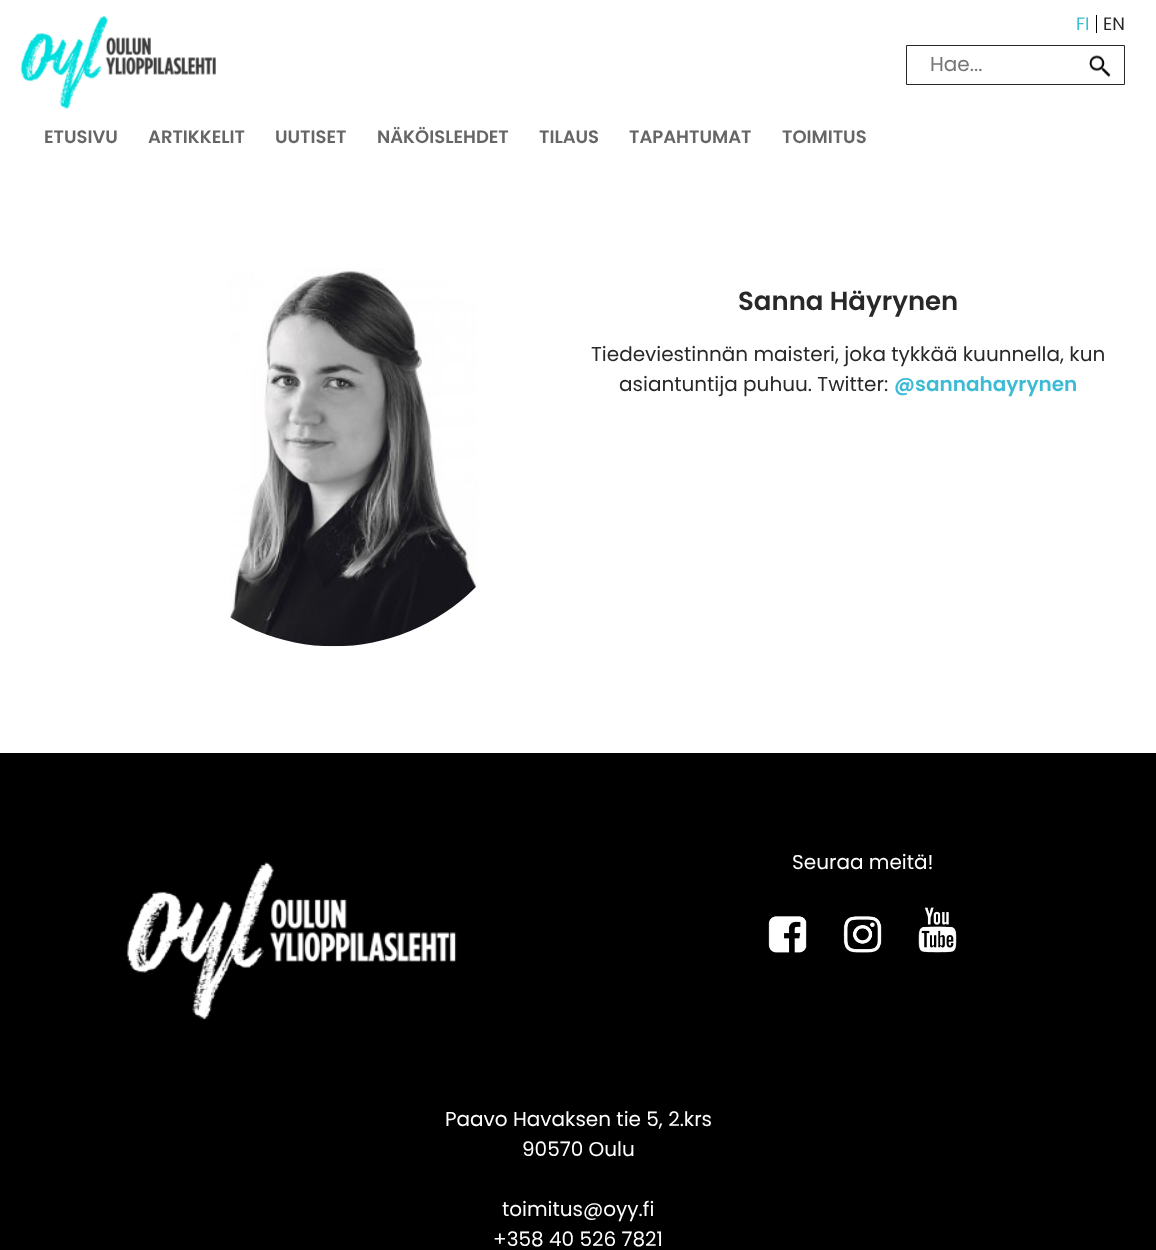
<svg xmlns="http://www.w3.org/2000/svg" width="1156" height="1250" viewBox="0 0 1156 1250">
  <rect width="100%" height="100%" fill="#fff"/>
  <image x="20" y="15" width="196" height="95" href="img/1.png"/>
  <path d="M1096 15h1v18H1096z" fill="#000"/>
  <path d="M906.5 45.5h218v39H906.5z" fill="none" stroke="#282828"/>
  <image x="1089" y="55" width="22" height="22" href="img/2.png"/>
  <image x="229" y="268" width="249" height="379" href="img/3.png"/>
  <path d="M0 753h1156v497H0z" fill="#000"/>
  <image x="126" y="862" width="331" height="158" href="img/4.png"/>
  <image x="768" y="916" width="39" height="37" href="img/5.png"/>
  <image x="843" y="916" width="39" height="37" href="img/6.png"/>
  <image x="918" y="907" width="39" height="46" href="img/7.png"/>
  <text x="1076" y="30" font-family="Poppins" font-size="18" fill="#3ebbd4">FI</text>
  <text x="1103" y="30" font-family="Poppins" font-size="18" fill="#282828">EN</text>
  <text x="930" y="71" font-family="Poppins" font-size="20" fill="#757575">Hae...</text>
  <g font-family="Poppins" font-size="18" font-weight="600" fill="#666">
    <text x="44" y="143">ETUSIVU</text>
    <text x="148" y="143">ARTIKKELIT</text>
    <text x="275" y="143">UUTISET</text>
    <text x="377" y="143">NÄKÖISLEHDET</text>
    <text x="539" y="143">TILAUS</text>
    <text x="629" y="143">TAPAHTUMAT</text>
    <text x="782" y="143">TOIMITUS</text>
  </g>
  <text x="738" y="310" font-family="Poppins" font-size="26" font-weight="600" fill="#282828">Sanna Häyrynen</text>
  <g font-family="Poppins" font-size="20" fill="#282828">
    <text x="591" y="361">Tiedeviestinnän maisteri, joka tykkää kuunnella, kun</text>
    <text x="619" y="391">asiantuntija puhuu. Twitter:</text>
  </g>
  <text x="894" y="391" font-family="Poppins" font-size="20" font-weight="600" fill="#3ebbd4">@sannahayrynen</text>
  <g font-family="Poppins" font-size="20" fill="#fff">
    <text x="792" y="869">Seuraa meitä!</text>
    <text x="445" y="1126">Paavo Havaksen tie 5, 2.krs</text>
    <text x="522" y="1156">90570 Oulu</text>
    <text x="502" y="1216">toimitus@oyy.fi</text>
    <text x="493" y="1246">+358 40 526 7821</text>
  </g>
</svg>
